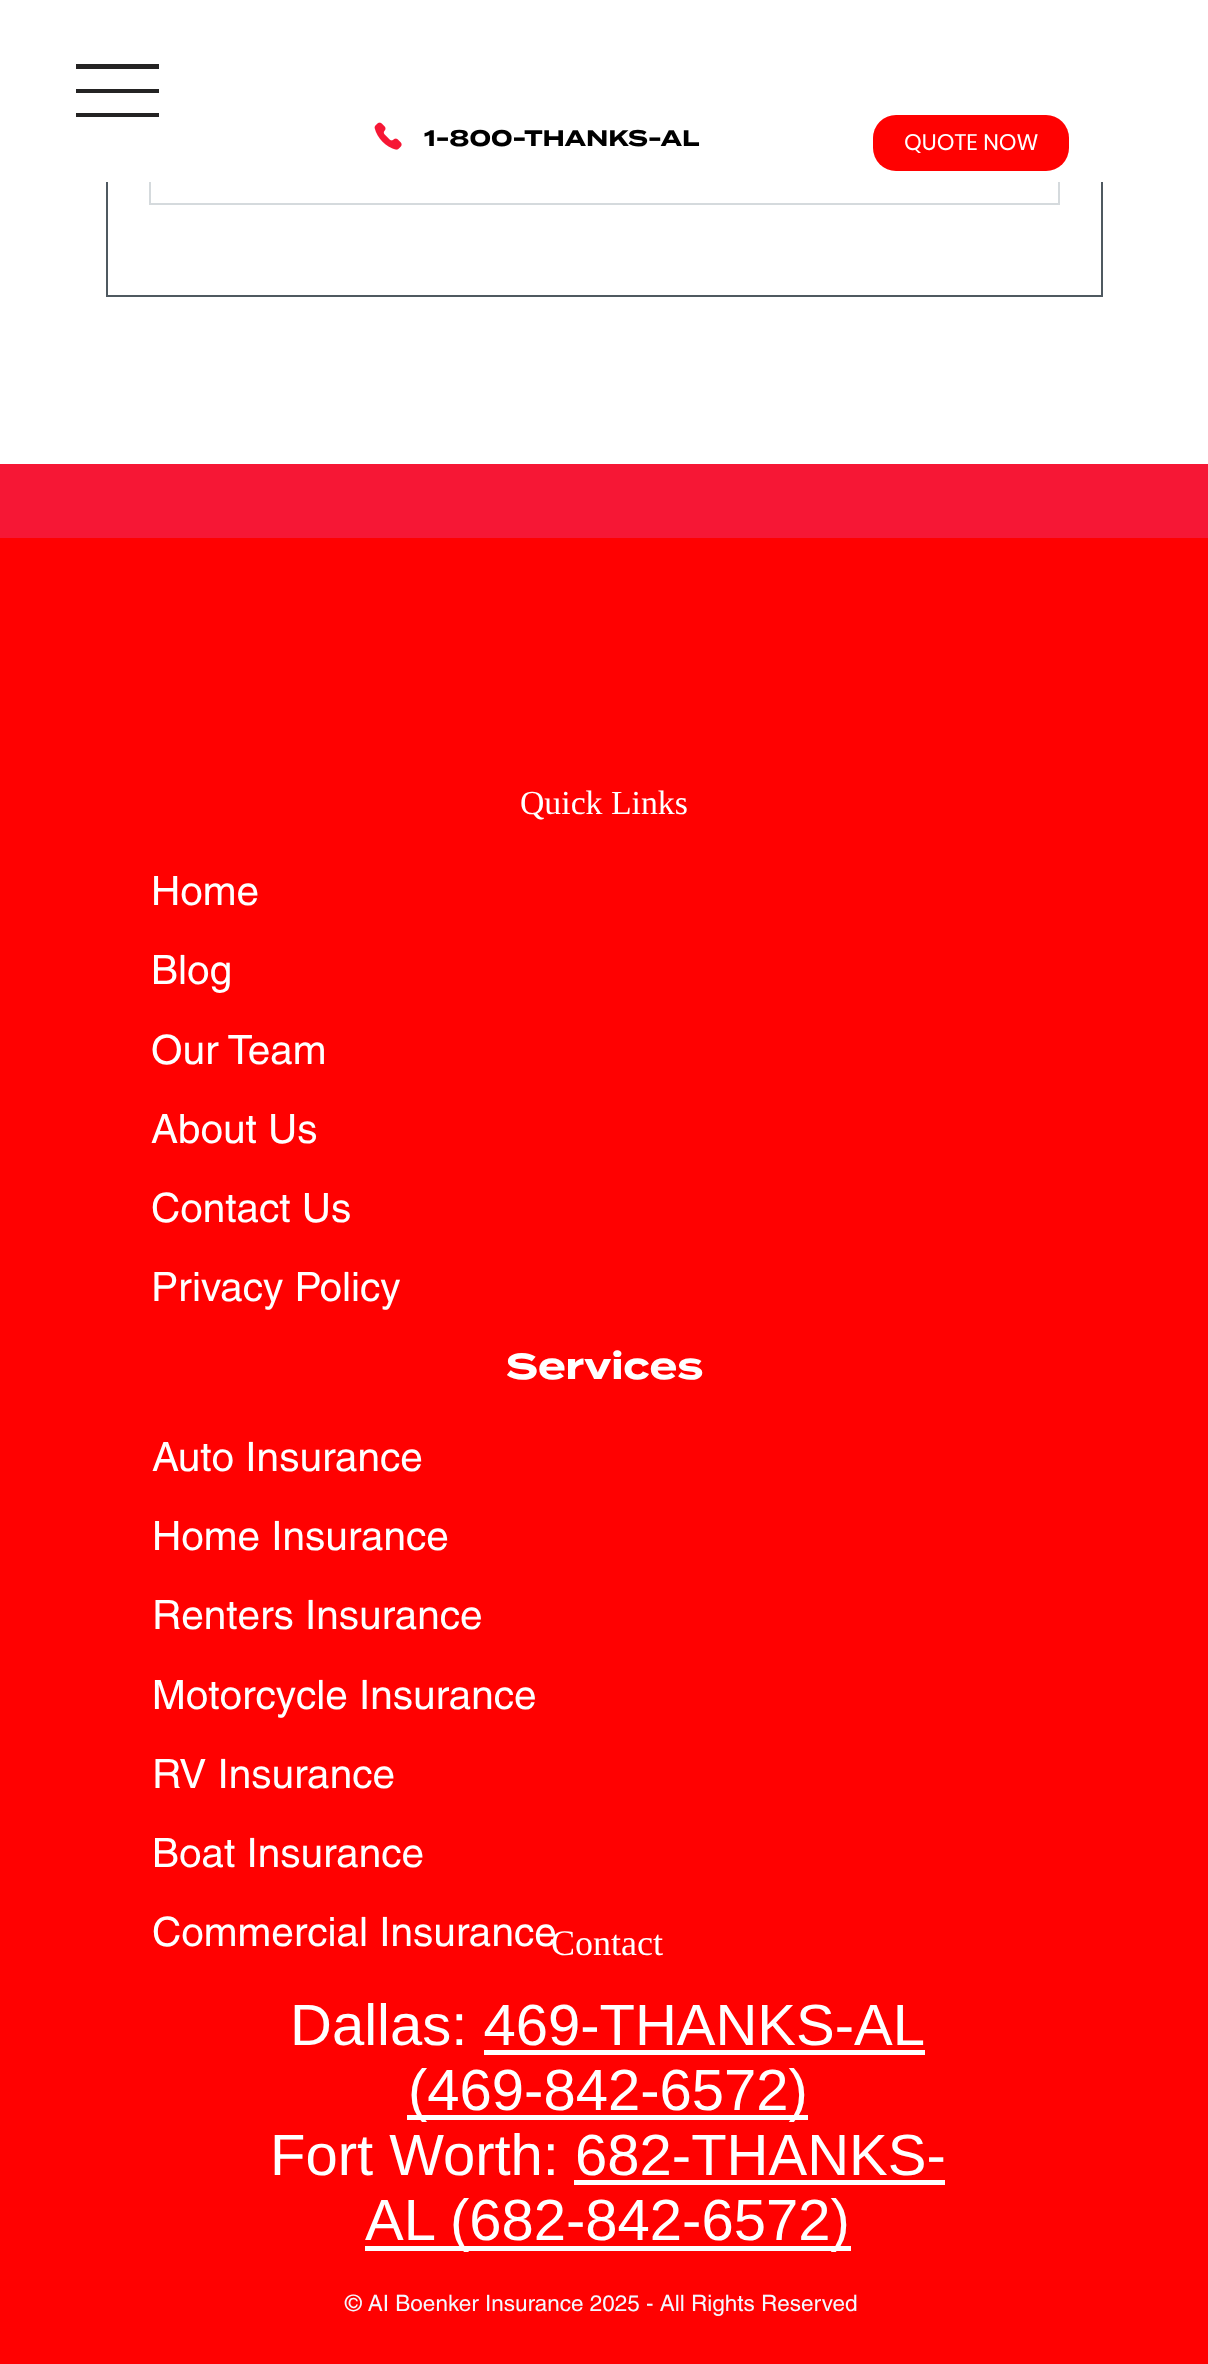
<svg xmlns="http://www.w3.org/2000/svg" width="1208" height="2364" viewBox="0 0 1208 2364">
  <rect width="100%" height="100%" fill="#fff"/>
  <path d="M107 -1h995v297H107z" fill="none" stroke="#4f5960" stroke-width="2"/>
  <path d="M150 75h909v129H150z" fill="none" stroke="#d5dadd" stroke-width="2"/>
  <path d="M106 0h997v182H106z" fill="#fff"/>
  <path d="M76 64h83v5H76z" fill="#242323"/>
  <path d="M76 89h83v4H76z" fill="#242323"/>
  <path d="M76 113h83v4H76z" fill="#242323"/>
  <image x="374" y="122" width="28" height="28" href="img/1.png"/>
  <rect x="873" y="115" width="196" height="56" rx="23" fill="#ff0101"/>
  <path d="M0 464h1208v74H0z" fill="#f61735"/>
  <path d="M0 538h1208v1826H0z" fill="#ff0101"/>
  <path d="M484 2050h441v5H484z" fill="#fff"/>
  <path d="M407 2115h401v5H407z" fill="#fff"/>
  <path d="M574 2180h371v5H574z" fill="#fff"/>
  <path d="M365 2246h486v5H365z" fill="#fff"/>
  <text x="424" y="146" font-family="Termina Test" font-size="22.5" font-weight="bold" fill="#000">1-800-THANKS-AL</text>
  <text x="904" y="150" font-family="Poppins" font-size="22.5" fill="#fff">QUOTE NOW</text>
  <text x="520" y="814" font-family="Liberation Serif" font-size="33.75" fill="#fff">Quick Links</text>
  <g font-family="helvetica" font-size="40.5" fill="#fff">
    <text x="151" y="905">Home</text>
    <text x="151" y="984">Blog</text>
    <text x="151" y="1064">Our Team</text>
    <text x="151" y="1143">About Us</text>
    <text x="151" y="1222">Contact Us</text>
    <text x="151" y="1301">Privacy Policy</text>
  </g>
  <text x="506" y="1379" font-family="Termina Test" font-size="36" font-weight="bold" fill="#fff">Services</text>
  <g font-family="helvetica" font-size="40.5" fill="#fff">
    <text x="152" y="1471">Auto Insurance</text>
    <text x="152" y="1550">Home Insurance</text>
    <text x="152" y="1629">Renters Insurance</text>
    <text x="152" y="1709">Motorcycle Insurance</text>
    <text x="152" y="1788">RV Insurance</text>
    <text x="152" y="1867">Boat Insurance</text>
  </g>
  <text x="551" y="1955" font-family="Liberation Serif" font-size="36" fill="#fff">Contact</text>
  <text x="152" y="1946" font-family="helvetica" font-size="40.5" fill="#fff">Commercial Insurance</text>
  <g font-family="Liberation Sans" font-size="58" fill="#fff">
    <text x="290" y="2045">Dallas: 469-THANKS-AL</text>
    <text x="408" y="2110">(469-842-6572)</text>
    <text x="270" y="2175">Fort Worth: 682-THANKS-</text>
    <text x="365" y="2240">AL (682-842-6572)</text>
  </g>
  <text x="345" y="2311" font-family="helvetica" font-size="22.5" fill="#f5f8ff">© AI Boenker Insurance 2025 - All Rights Reserved</text>
</svg>
